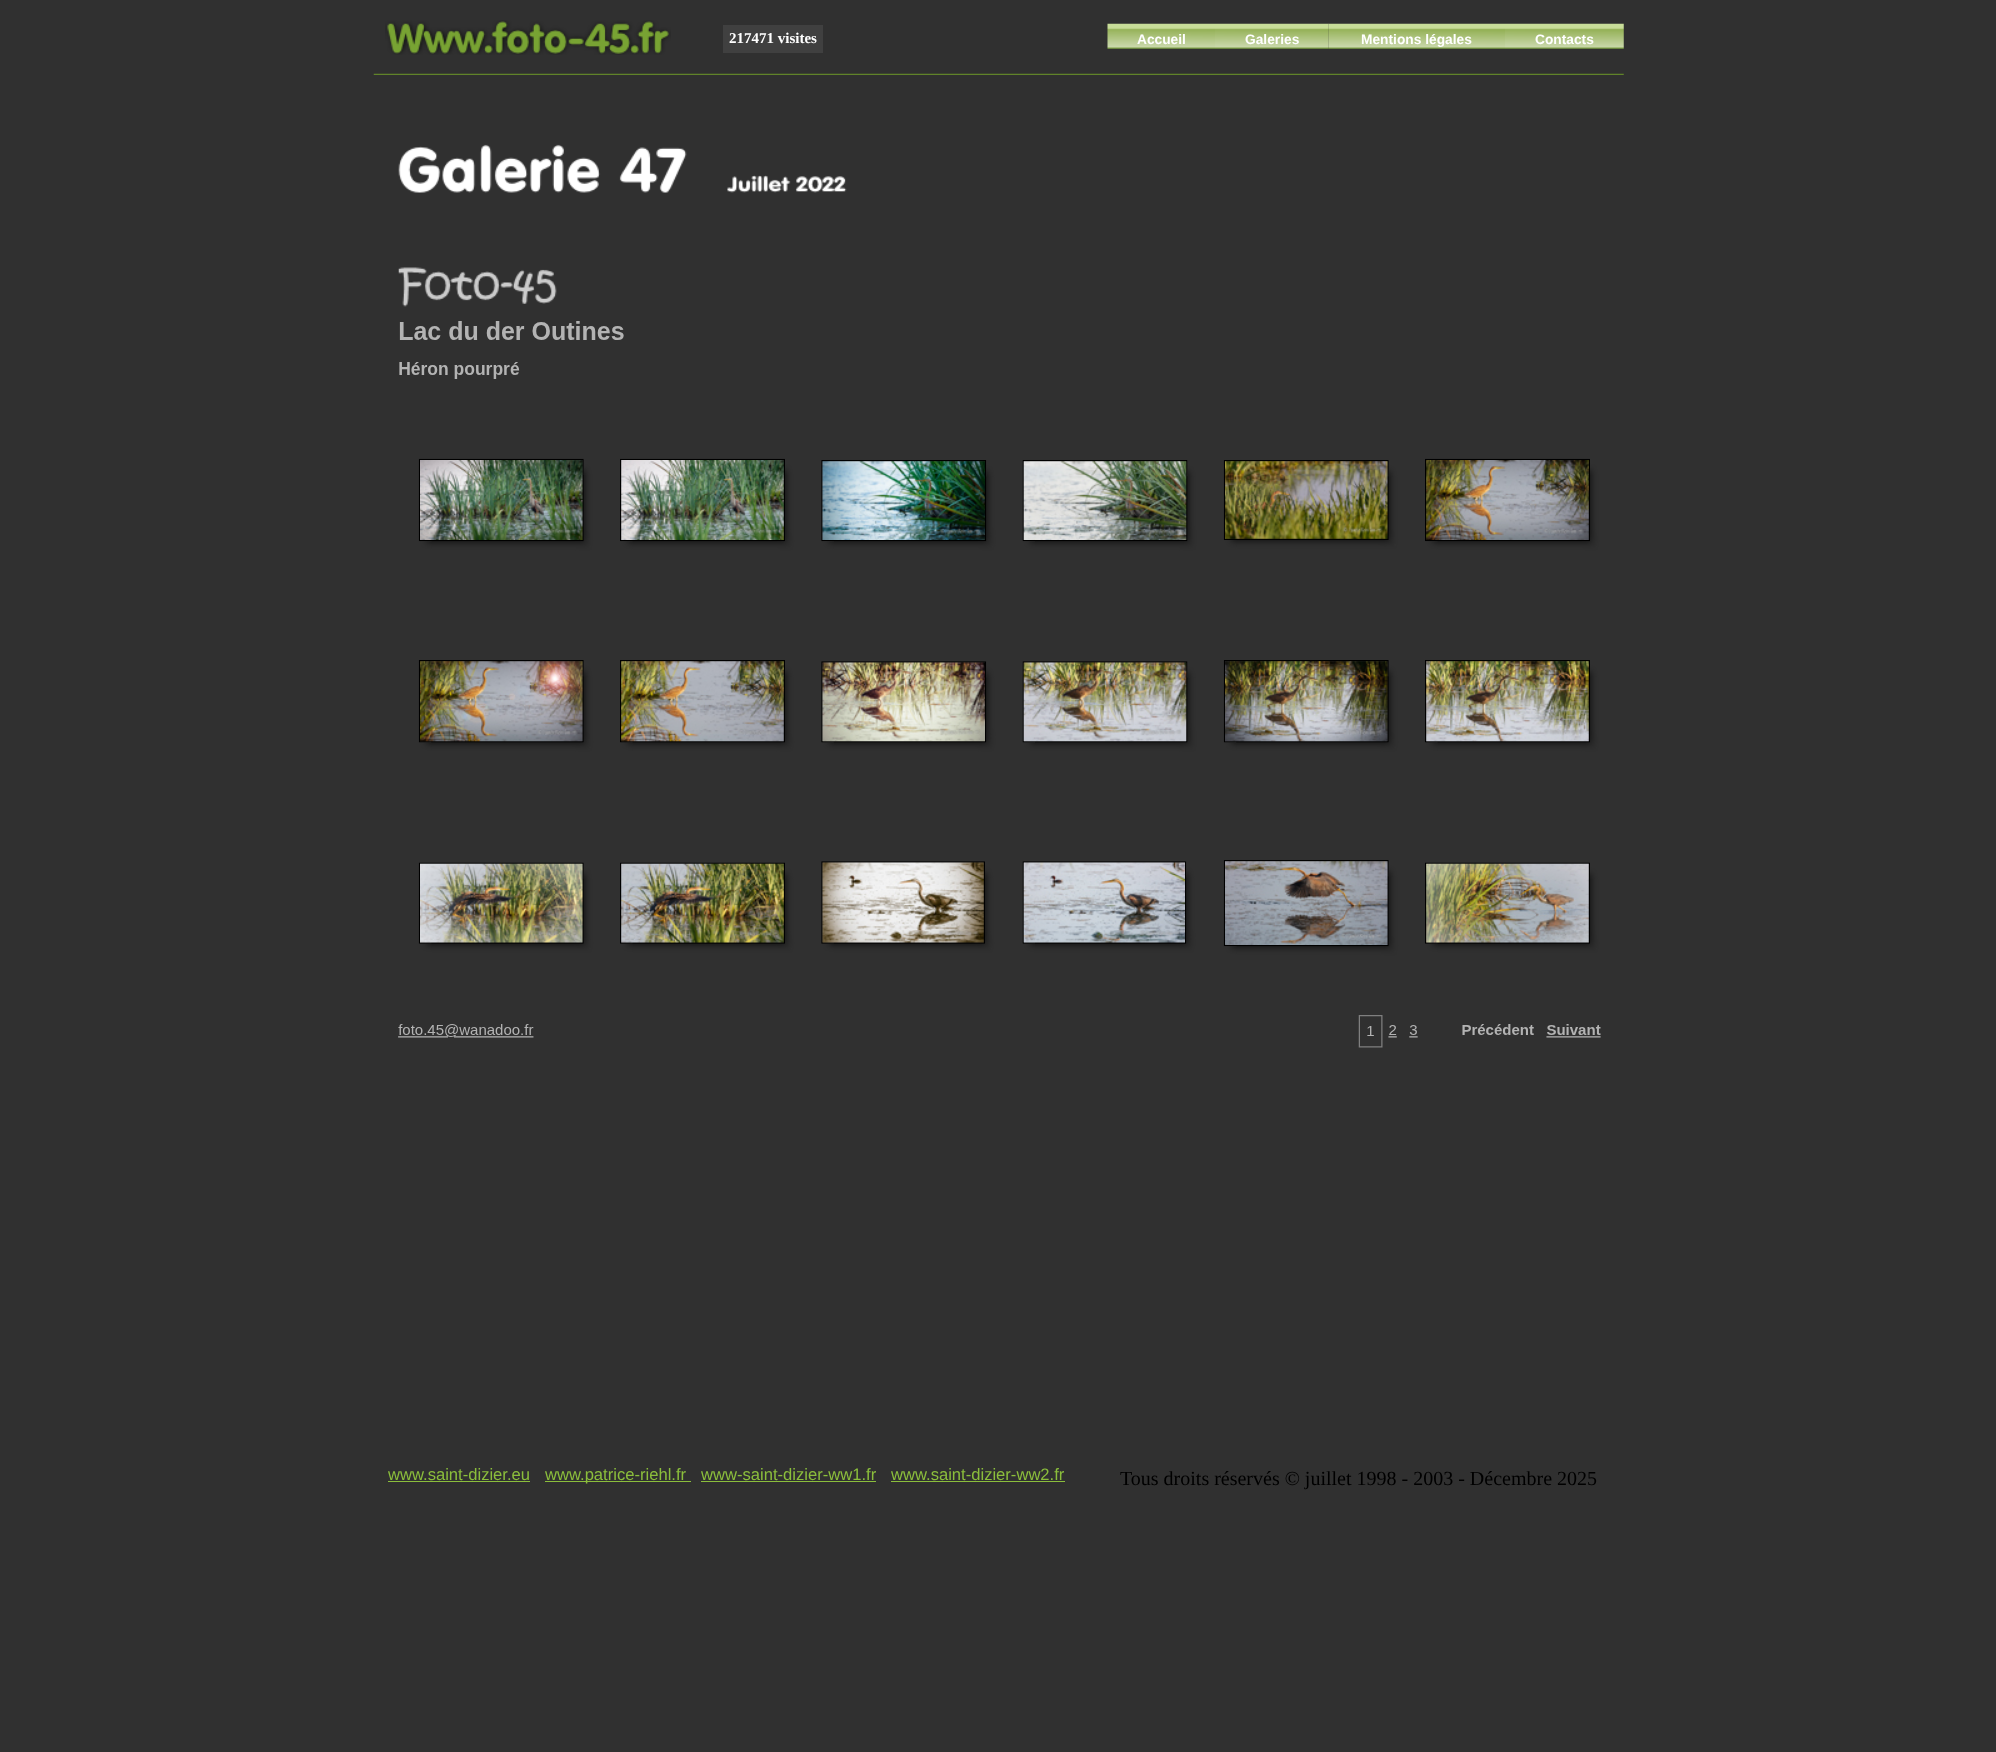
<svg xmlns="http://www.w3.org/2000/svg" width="1996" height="1752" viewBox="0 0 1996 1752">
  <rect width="100%" height="100%" fill="#303030"/>
  <image x="385" y="20" width="286" height="35" href="img/1.png"/>
  <path d="M723 25h100v28H723z" fill="#404040"/>
  <image x="1107" y="23" width="108" height="26" href="img/2.png"/>
  <image x="1215" y="23" width="114" height="26" href="img/3.png"/>
  <image x="1328" y="23" width="177" height="26" href="img/4.png"/>
  <image x="1505" y="23" width="119" height="26" href="img/5.png"/>
  <image x="373" y="73" width="1251" height="2" href="img/6.png"/>
  <image x="398" y="144" width="289" height="49" href="img/7.png"/>
  <image x="727" y="175" width="120" height="18" href="img/8.png"/>
  <image x="398" y="267" width="1203" height="781" href="img/9.png"/>
  <path d="M388 1481h142v1H388z" fill="#8bbe3c"/>
  <path d="M545 1481h146v1H545z" fill="#8bbe3c"/>
  <path d="M701 1481h175v1H701z" fill="#8bbe3c"/>
  <path d="M891 1481h174v1H891z" fill="#8bbe3c"/>
  <text x="729" y="43" font-family="Liberation Serif" font-size="15" font-weight="bold" fill="#fff">217471 visites</text>
  <g font-family="Liberation Sans" font-size="13.75" font-weight="bold" fill="#fff">
    <text x="1137" y="44">Accueil</text>
    <text x="1245" y="44">Galeries</text>
    <text x="1361" y="44">Mentions légales</text>
    <text x="1535" y="44">Contacts</text>
  </g>
  <g font-family="Liberation Sans" font-size="16.6" fill="#8bbe3c">
    <text x="388" y="1480">www.saint-dizier.eu</text>
    <text x="545" y="1480">www.patrice-riehl.fr</text>
    <text x="701" y="1480">www-saint-dizier-ww1.fr</text>
    <text x="891" y="1480">www.saint-dizier-ww2.fr</text>
  </g>
  <text x="1120" y="1485" font-family="Liberation Serif" font-size="20" fill="#000">Tous droits réservés © juillet 1998 - 2003 - Décembre 2025</text>
</svg>
